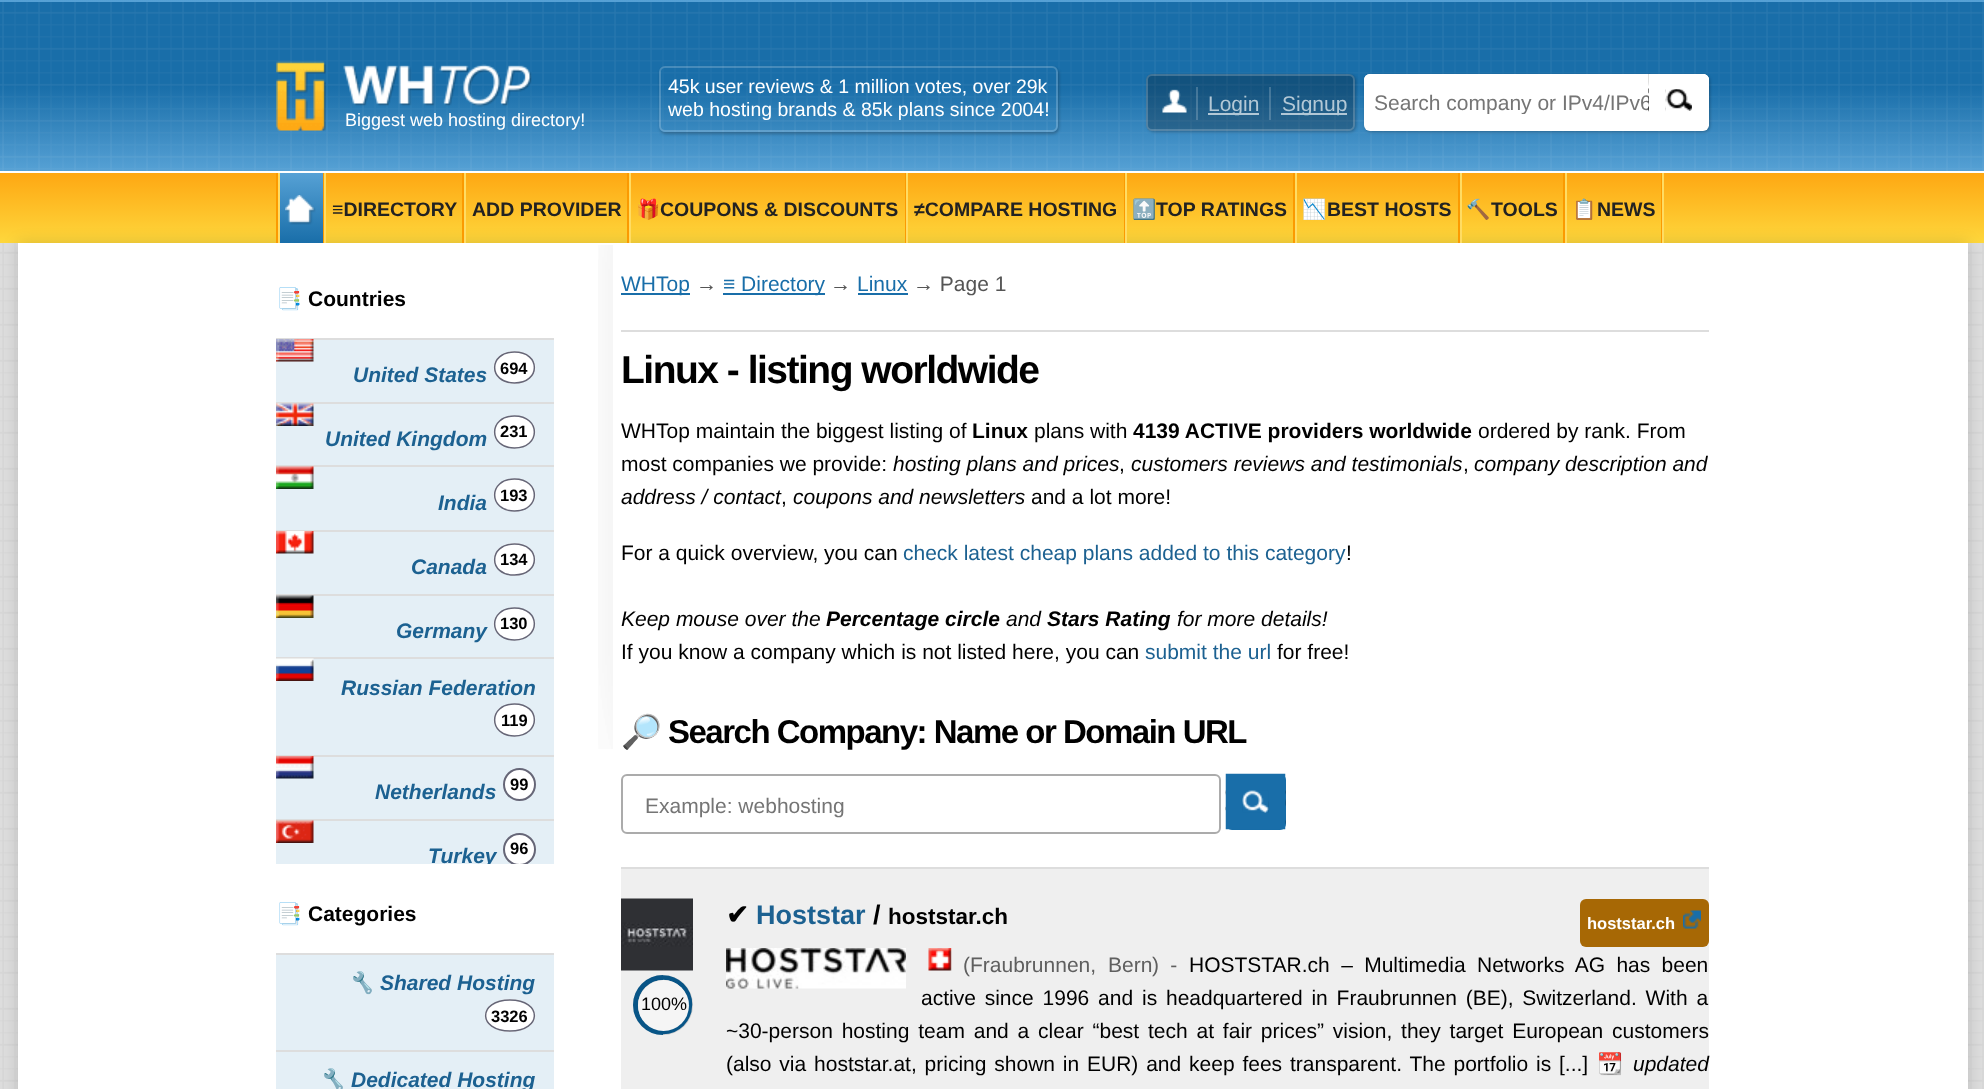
<svg xmlns="http://www.w3.org/2000/svg" width="1984" height="1089" viewBox="0 0 1984 1089">
  <defs>
    <linearGradient id="g1" gradientUnits="userSpaceOnUse" x1="992" y1="-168" x2="992" y2="1.5"><stop offset="0" stop-color="#196ea9"/><stop offset="0.5" stop-color="#196ea9"/><stop offset="1" stop-color="#56a1d5"/></linearGradient>
    <linearGradient id="g2" gradientUnits="userSpaceOnUse" x1="992" y1="1.5" x2="992" y2="171"><stop offset="0" stop-color="#196ea9"/><stop offset="0.5" stop-color="#196ea9"/><stop offset="1" stop-color="#56a1d5"/></linearGradient>
    <clipPath id="clip1"><path d="M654 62H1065V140H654ZM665 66H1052C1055.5 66 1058 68.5 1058 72V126C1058 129.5 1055.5 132 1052 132H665C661.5 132 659 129.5 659 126V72C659 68.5 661.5 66 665 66Z" clip-rule="evenodd"/></clipPath>
    <clipPath id="clip2"><path d="M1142 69H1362V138H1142ZM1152 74H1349C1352.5 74 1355 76.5 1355 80V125C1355 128.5 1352.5 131 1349 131H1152C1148.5 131 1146 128.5 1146 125V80C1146 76.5 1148.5 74 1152 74Z" clip-rule="evenodd"/></clipPath>
    <linearGradient id="g3" gradientUnits="userSpaceOnUse" x1="992" y1="172" x2="992" y2="243"><stop offset="0" stop-color="#fea712"/><stop offset="1" stop-color="#fed73c"/></linearGradient>
    <linearGradient id="g4" gradientUnits="userSpaceOnUse" x1="301" y1="173" x2="301" y2="243"><stop offset="0" stop-color="#56a1d5"/><stop offset="1" stop-color="#196ea9"/></linearGradient>
    <clipPath id="clip3"><path d="M276 339h278v525H276z"/></clipPath>
    <clipPath id="clip4"><path d="M633 975h30v60H633z"/></clipPath>
    <clipPath id="clip5"><path d="M663 975h30v60H663z"/></clipPath>
    <clipPath id="clip6"><path d="M1374 90h275v24H1374z"/></clipPath>
    <clipPath id="clip7"><rect x="1364" y="74" width="345" height="57" rx="6"/></clipPath>
  </defs>
  <rect width="100%" height="100%" fill="#ddd"/>
  <image x="0" y="243" width="1984" height="846" href="img/1.png"/>
  <path d="M0 0h1984v2H0z" fill="url(#g1)"/>
  <path d="M0 2h1984v169H0z" fill="url(#g2)"/>
  <image x="0" y="2" width="1984" height="169" href="img/2.png"/>
  <g clip-path="url(#clip1)">
    <rect x="660" y="68" width="399" height="66" rx="6" fill="#00000040" filter="blur(1.5px)"/>
  </g>
  <rect x="660" y="67" width="397" height="64" rx="5" fill="none" stroke="#ffffff33" stroke-width="2"/>
  <g clip-path="url(#clip2)">
    <rect x="1148" y="75" width="208" height="57" rx="6" fill="#00000040" filter="blur(1.5px)"/>
  </g>
  <rect x="1146" y="74" width="209" height="57" rx="6" fill="#00000040"/>
  <rect x="1147" y="75" width="207" height="55" rx="5" fill="none" stroke="#ffffff33" stroke-width="2"/>
  <image x="1162" y="89" width="25" height="24" href="img/3.png"/>
  <path d="M1196 87h2v33H1196z" fill="#ffffff33"/>
  <path d="M1208 113h51v2H1208z" fill="#ffffffa6"/>
  <path d="M1269 87h2v33H1269z" fill="#ffffff33"/>
  <path d="M1281 113h66v2H1281z" fill="#ffffffa6"/>
  <rect x="1365" y="75" width="345" height="57" rx="6" fill="#00000040" filter="blur(1.5px)"/>
  <rect x="1364" y="74" width="345" height="57" rx="6" fill="#fff"/>
  <rect x="1364" y="74" width="285" height="54" rx="6" fill="#fff"/>
  <image x="276" y="61" width="256" height="70" href="img/5.png"/>
  <path d="M0 173h1984v70H0z" fill="url(#g3)"/>
  <path d="M0 171h1984v2H0z" fill="#fff"/>
  <path d="M18 243h1950v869H18z" fill="#00000026" filter="blur(7.5px)"/>
  <path d="M276 173h2v70H276z" fill="#fb9a01"/>
  <path d="M278 173h2v70H278z" fill="#ffdc63"/>
  <path d="M280 173h43v70H280z" fill="url(#g4)"/>
  <image x="285" y="195" width="31" height="30" href="img/6.png"/>
  <path d="M323 173h1v70H323z" fill="#fb9a01"/>
  <path d="M324 173h2v70H324z" fill="#ffdc63"/>
  <path d="M462 173h2v70H462z" fill="#fb9a01"/>
  <path d="M464 173h2v70H464z" fill="#ffdc63"/>
  <path d="M627 173h2v70H627z" fill="#fb9a01"/>
  <path d="M629 173h2v70H629z" fill="#ffdc63"/>
  <path d="M905 173h1v70H905z" fill="#fb9a01"/>
  <path d="M906 173h2v70H906z" fill="#ffdc63"/>
  <path d="M1124 173h1v70H1124z" fill="#fb9a01"/>
  <path d="M1125 173h2v70H1125z" fill="#ffdc63"/>
  <path d="M1293 173h2v70H1293z" fill="#fb9a01"/>
  <path d="M1295 173h2v70H1295z" fill="#ffdc63"/>
  <path d="M1458 173h2v70H1458z" fill="#fb9a01"/>
  <path d="M1460 173h2v70H1460z" fill="#ffdc63"/>
  <path d="M1563 173h2v70H1563z" fill="#fb9a01"/>
  <path d="M1565 173h2v70H1565z" fill="#ffdc63"/>
  <path d="M1661 173h1v70H1661z" fill="#fb9a01"/>
  <path d="M1662 173h2v70H1662z" fill="#ffdc63"/>
  <path d="M18 243h1950v846H18z" fill="#fff"/>
  <image x="598" y="245" width="15" height="504" href="img/7.png"/>
  <path d="M276 340h278v524H276z" fill="#e4eff6"/>
  <path d="M276 338h278v2H276z" fill="#ddd"/>
  <path d="M276 402h278v2H276z" fill="#ddd"/>
  <image x="276" y="339" width="38" height="23" href="img/8.png"/>
  <ellipse cx="514.5" cy="367.5" rx="21" ry="16.5" fill="#fff"/>
  <path d="M514.5 352C541 352 541 383 514.5 383C488 383 488 352 514.5 352Z" fill="none" stroke="#667" stroke-width="1.5"/>
  <path d="M276 465h278v2H276z" fill="#ddd"/>
  <image x="276" y="403" width="38" height="23" href="img/9.png"/>
  <ellipse cx="514.5" cy="432" rx="21" ry="16.5" fill="#fff"/>
  <path d="M514.5 416C541 416 541 448 514.5 448C488 448 488 416 514.5 416Z" fill="none" stroke="#667" stroke-width="1.5"/>
  <path d="M276 530h278v2H276z" fill="#ddd"/>
  <image x="276" y="466" width="38" height="23" href="img/10.png"/>
  <ellipse cx="514.5" cy="495" rx="21" ry="16.5" fill="#fff"/>
  <path d="M514.5 479C541 479 541 511 514.5 511C488 511 488 479 514.5 479Z" fill="none" stroke="#667" stroke-width="1.5"/>
  <path d="M276 594h278v2H276z" fill="#ddd"/>
  <image x="276" y="531" width="38" height="23" href="img/11.png"/>
  <ellipse cx="514.5" cy="559.5" rx="21" ry="16.5" fill="#fff"/>
  <path d="M514.5 544C541 544 541 575 514.5 575C488 575.5 488 544 514.5 544Z" fill="none" stroke="#667" stroke-width="1.5"/>
  <path d="M276 657h278v2H276z" fill="#ddd"/>
  <image x="276" y="595" width="38" height="23" href="img/12.png"/>
  <ellipse cx="514.5" cy="624" rx="21" ry="16.5" fill="#fff"/>
  <path d="M514.5 608C541 608 541 639.5 514.5 640C488 640 488 608 514.5 608Z" fill="none" stroke="#667" stroke-width="1.5"/>
  <path d="M276 755h278v2H276z" fill="#ddd"/>
  <image x="276" y="658" width="38" height="23" href="img/13.png"/>
  <ellipse cx="514.5" cy="720" rx="21" ry="16.5" fill="#fff"/>
  <path d="M514.5 704C541 704 541 735.5 514.5 736C488 736 488 704 514.5 704Z" fill="none" stroke="#667" stroke-width="1.5"/>
  <path d="M276 819h278v2H276z" fill="#ddd"/>
  <image x="276" y="756" width="38" height="23" href="img/14.png"/>
  <circle cx="519.5" cy="784.5" r="15.5" fill="#fff" stroke="#667" stroke-width="2"/>
  <image x="276" y="820" width="38" height="23" href="img/15.png"/>
  <g clip-path="url(#clip3)">
    <circle cx="519.5" cy="849.5" r="15.5" fill="#fff" stroke="#667" stroke-width="2"/>
  </g>
  <path d="M276 955h278v134H276z" fill="#e4eff6"/>
  <path d="M276 953h278v2H276z" fill="#ddd"/>
  <path d="M276 1050h278v2H276z" fill="#ddd"/>
  <ellipse cx="510" cy="1015.5" rx="25.5" ry="16.5" fill="#fff"/>
  <path d="M510 1000C542.5 1000 542.5 1031 510 1031C477.5 1031 477.5 1000 510 1000Z" fill="none" stroke="#667" stroke-width="1.5"/>
  <path d="M621 330h1088v2H621z" fill="#ddd"/>
  <path d="M621 293h69v2H621z" fill="#196ea9"/>
  <path d="M723 293h102v2H723z" fill="#196ea9"/>
  <path d="M858 293h50v2H858z" fill="#196ea9"/>
  <rect x="622" y="775" width="598" height="58" rx="5" fill="none" stroke="#ababab" stroke-width="2"/>
  <rect x="1226" y="774" width="60" height="56" rx="6" fill="#196ea9"/>
  <image x="1225" y="790" width="61" height="34" href="img/16.png"/>
  <path d="M1234 782H1277V821H1234Z" fill="none" stroke="#196ea9" stroke-width="16.5"/>
  <path d="M621 867h1088v2H621z" fill="#ddd"/>
  <path d="M621 869h1088v220H621z" fill="#efefef"/>
  <rect x="1580" y="899" width="129" height="48" rx="6" fill="#a76805"/>
  <image x="1683" y="910" width="18" height="19" href="img/17.png"/>
  <image x="621" y="898" width="72" height="73" href="img/18.png"/>
  <circle cx="663" cy="1005" r="30" fill="#ccc"/>
  <g clip-path="url(#clip4)">
    <circle cx="663" cy="1005" r="27.5" fill="none" stroke="#085587" stroke-width="5"/>
  </g>
  <g clip-path="url(#clip5)">
    <path d="M662.5 1032C647.5 1032 635.5 1020 635.5 1004.5C635.5 989.5 647.5 977.5 662.5 977.5C678 977.5 690 989.5 690 1004.5C690 1020 678 1032 662.5 1032Z" fill="none" stroke="#085587" stroke-width="4.5"/>
  </g>
  <circle cx="663.5" cy="1005.5" r="25.5" fill="#f5f5f5"/>
  <image x="726" y="948" width="180" height="41" href="img/19.png"/>
  <image x="928" y="948" width="24" height="23" href="img/20.png"/>
  <g font-family="Liberation Sans" font-size="19.5" fill="#fff">
    <text x="668" y="93">45k user reviews &amp; 1 million votes, over 29k</text>
    <text x="668" y="116">web hosting brands &amp; 85k plans since 2004!</text>
  </g>
  <g font-family="Liberation Sans" font-size="21" fill="#b3c8d6">
    <text x="1208" y="111">Login</text>
    <text x="1282" y="111">Signup</text>
  </g>
  <g clip-path="url(#clip6)">
    <text x="1374" y="110" font-family="Liberation Sans" font-size="21" fill="#757575">Search company or IPv4/IPv6</text>
  </g>
  <image x="1648" y="73" width="44" height="39" href="img/4.png"/>
  <path d="M1649 74H1703C1706.5 74 1709 76.5 1709 80V89H1649Z" fill="#fff"/>
  <g clip-path="url(#clip7)">
    <path d="M1692 74H1703C1706.5 74 1709 76.5 1709 80V126H1692Z" fill="#fff"/>
  </g>
  <path d="M1688 111h3v1H1688z" fill="#fff"/>
  <path d="M1649 89h16v23H1649z" fill="#fff"/>
  <text x="345" y="126" font-family="Liberation Sans" font-size="18" fill="#fff">Biggest web hosting directory!</text>
  <g font-family="Liberation Sans" font-size="19.5" font-weight="bold" fill="#222">
    <text x="332" y="216">≡DIRECTORY</text>
    <text x="472" y="216">ADD PROVIDER</text>
  </g>
  <text x="636" y="216" font-family="Noto Color Emoji" font-size="19.5" font-weight="bold" fill="#222">🎁</text>
  <g font-family="Liberation Sans" font-size="19.5" font-weight="bold" fill="#222">
    <text x="660" y="216">COUPONS &amp; DISCOUNTS</text>
    <text x="914" y="216">≠COMPARE HOSTING</text>
  </g>
  <text x="1132" y="216" font-family="Noto Color Emoji" font-size="19.5" font-weight="bold" fill="#222">🔝</text>
  <text x="1156" y="216" font-family="Liberation Sans" font-size="19.5" font-weight="bold" fill="#222">TOP RATINGS</text>
  <text x="1302" y="216" font-family="Noto Color Emoji" font-size="19.5" font-weight="bold" fill="#222">📉</text>
  <text x="1327" y="216" font-family="Liberation Sans" font-size="19.5" font-weight="bold" fill="#222">BEST HOSTS</text>
  <text x="1466" y="216" font-family="Noto Color Emoji" font-size="19.5" font-weight="bold" fill="#222">🔨</text>
  <text x="1491" y="216" font-family="Liberation Sans" font-size="19.5" font-weight="bold" fill="#222">TOOLS</text>
  <text x="1572" y="216" font-family="Noto Color Emoji" font-size="19.5" font-weight="bold" fill="#222">📋</text>
  <text x="1597" y="216" font-family="Liberation Sans" font-size="19.5" font-weight="bold" fill="#222">NEWS</text>
  <text x="276" y="306" font-family="Noto Color Emoji" font-size="21" font-weight="bold" fill="#000">📑</text>
  <text x="308" y="306" font-family="Liberation Sans" font-size="21" font-weight="bold" fill="#000">Countries</text>
  <text x="353" y="382" font-family="Liberation Sans" font-size="21" font-weight="bold" font-style="italic" fill="#1c6191">United States</text>
  <text x="500" y="374" font-family="Liberation Sans" font-size="16.5" font-weight="bold" fill="#000">694</text>
  <text x="325" y="446" font-family="Liberation Sans" font-size="21" font-weight="bold" font-style="italic" fill="#1c6191">United Kingdom</text>
  <text x="500" y="437" font-family="Liberation Sans" font-size="16.5" font-weight="bold" fill="#000">231</text>
  <text x="438" y="510" font-family="Liberation Sans" font-size="21" font-weight="bold" font-style="italic" fill="#1c6191">India</text>
  <text x="500" y="501" font-family="Liberation Sans" font-size="16.5" font-weight="bold" fill="#000">193</text>
  <text x="411" y="574" font-family="Liberation Sans" font-size="21" font-weight="bold" font-style="italic" fill="#1c6191">Canada</text>
  <text x="500" y="565" font-family="Liberation Sans" font-size="16.5" font-weight="bold" fill="#000">134</text>
  <text x="396" y="638" font-family="Liberation Sans" font-size="21" font-weight="bold" font-style="italic" fill="#1c6191">Germany</text>
  <text x="500" y="629" font-family="Liberation Sans" font-size="16.5" font-weight="bold" fill="#000">130</text>
  <text x="341" y="695" font-family="Liberation Sans" font-size="21" font-weight="bold" font-style="italic" fill="#1c6191">Russian Federation</text>
  <text x="501" y="726" font-family="Liberation Sans" font-size="16.5" font-weight="bold" fill="#000">119</text>
  <text x="375" y="799" font-family="Liberation Sans" font-size="21" font-weight="bold" font-style="italic" fill="#1c6191">Netherlands</text>
  <text x="510" y="790" font-family="Liberation Sans" font-size="16.5" font-weight="bold" fill="#000">99</text>
  <g clip-path="url(#clip3)">
    <text x="428" y="863" font-family="Liberation Sans" font-size="21" font-weight="bold" font-style="italic" fill="#1c6191">Turkey</text>
  </g>
  <text x="510" y="854" font-family="Liberation Sans" font-size="16.5" font-weight="bold" fill="#000">96</text>
  <text x="276" y="921" font-family="Noto Color Emoji" font-size="21" font-weight="bold" fill="#000">📑</text>
  <text x="308" y="921" font-family="Liberation Sans" font-size="21" font-weight="bold" fill="#000">Categories</text>
  <text x="348" y="990" font-family="Noto Color Emoji" font-size="21" font-weight="bold" font-style="italic" fill="#1c6191">🔧</text>
  <text x="380" y="990" font-family="Liberation Sans" font-size="21" font-weight="bold" font-style="italic" fill="#1c6191">Shared Hosting</text>
  <text x="491" y="1022" font-family="Liberation Sans" font-size="16.5" font-weight="bold" fill="#000">3326</text>
  <text x="319" y="1087" font-family="Noto Color Emoji" font-size="21" font-weight="bold" font-style="italic" fill="#1c6191">🔧</text>
  <text x="351" y="1087" font-family="Liberation Sans" font-size="21" font-weight="bold" font-style="italic" fill="#1c6191">Dedicated Hosting</text>
  <text x="621" y="291" font-family="Liberation Sans" font-size="21" fill="#196ea9">WHTop</text>
  <text x="696" y="291" font-family="Liberation Sans" font-size="21" fill="#555">→</text>
  <text x="723" y="291" font-family="Liberation Sans" font-size="21" fill="#196ea9">≡ Directory</text>
  <text x="830" y="291" font-family="Liberation Sans" font-size="21" fill="#555">→</text>
  <text x="857" y="291" font-family="Liberation Sans" font-size="21" fill="#196ea9">Linux</text>
  <text x="913" y="291" font-family="Liberation Sans" font-size="21" fill="#555">→ Page 1</text>
  <text x="621" y="383" font-family="Liberation Sans" font-size="39" font-weight="bold" letter-spacing="-1.5" fill="#000">Linux - listing worldwide</text>
  <text x="621" y="438" font-family="Liberation Sans" font-size="21" fill="#000">WHTop maintain the biggest listing of</text>
  <text x="972" y="438" font-family="Liberation Sans" font-size="21" font-weight="bold" fill="#000">Linux</text>
  <text x="1034" y="438" font-family="Liberation Sans" font-size="21" fill="#000">plans with</text>
  <text x="1133" y="438" font-family="Liberation Sans" font-size="21" font-weight="bold" fill="#000">4139 ACTIVE providers worldwide</text>
  <g font-family="Liberation Sans" font-size="21" fill="#000">
    <text x="1478" y="438">ordered by rank. From</text>
    <text x="621" y="471">most companies we provide:</text>
  </g>
  <text x="893" y="471" font-family="Liberation Sans" font-size="21" font-style="italic" fill="#000">hosting plans and prices</text>
  <text x="1119" y="471" font-family="Liberation Sans" font-size="21" fill="#000">,</text>
  <text x="1131" y="471" font-family="Liberation Sans" font-size="21" font-style="italic" fill="#000">customers reviews and testimonials</text>
  <text x="1463" y="471" font-family="Liberation Sans" font-size="21" fill="#000">,</text>
  <g font-family="Liberation Sans" font-size="21" font-style="italic" fill="#000">
    <text x="1474" y="471">company description and</text>
    <text x="621" y="504">address / contact</text>
  </g>
  <text x="781" y="504" font-family="Liberation Sans" font-size="21" fill="#000">,</text>
  <text x="793" y="504" font-family="Liberation Sans" font-size="21" font-style="italic" fill="#000">coupons and newsletters</text>
  <g font-family="Liberation Sans" font-size="21" fill="#000">
    <text x="1031" y="504">and a lot more!</text>
    <text x="621" y="560">For a quick overview, you can</text>
  </g>
  <text x="903" y="560" font-family="Liberation Sans" font-size="21" fill="#1c6191">check latest cheap plans added to this category</text>
  <text x="1346" y="560" font-family="Liberation Sans" font-size="21" fill="#000">!</text>
  <text x="621" y="626" font-family="Liberation Sans" font-size="21" font-style="italic" fill="#000">Keep mouse over the</text>
  <text x="826" y="626" font-family="Liberation Sans" font-size="21" font-weight="bold" font-style="italic" fill="#000">Percentage circle</text>
  <text x="1006" y="626" font-family="Liberation Sans" font-size="21" font-style="italic" fill="#000">and</text>
  <text x="1047" y="626" font-family="Liberation Sans" font-size="21" font-weight="bold" font-style="italic" fill="#000">Stars Rating</text>
  <text x="1177" y="626" font-family="Liberation Sans" font-size="21" font-style="italic" fill="#000">for more details!</text>
  <text x="621" y="659" font-family="Liberation Sans" font-size="21" fill="#000">If you know a company which is not listed here, you can</text>
  <text x="1145" y="659" font-family="Liberation Sans" font-size="21" fill="#1c6191">submit the url</text>
  <text x="1277" y="659" font-family="Liberation Sans" font-size="21" fill="#000">for free!</text>
  <text x="621" y="743" font-family="Noto Color Emoji" font-size="33" font-weight="bold" letter-spacing="-1.5" fill="#000">🔎</text>
  <text x="668" y="743" font-family="Liberation Sans" font-size="33" font-weight="bold" letter-spacing="-1.5" fill="#000">Search Company: Name or Domain URL</text>
  <text x="645" y="813" font-family="Liberation Sans" font-size="21" fill="#757575">Example: webhosting</text>
  <text x="726" y="924" font-family="DejaVu Sans" font-size="27" font-weight="bold" fill="#000">✔</text>
  <text x="756" y="924" font-family="Liberation Sans" font-size="27" font-weight="bold" fill="#1c6191">Hoststar</text>
  <text x="873" y="924" font-family="Liberation Sans" font-size="27" font-weight="bold" fill="#000">/</text>
  <text x="888" y="924" font-family="Liberation Sans" font-size="22.5" font-weight="bold" fill="#000">hoststar.ch</text>
  <text x="1587" y="929" font-family="Liberation Sans" font-size="16.5" font-weight="bold" fill="#fff">hoststar.ch</text>
  <text x="641" y="1010" font-family="Liberation Sans" font-size="18" fill="#000">100%</text>
  <g font-family="Liberation Sans" font-size="21" fill="#5f5f5f">
    <text x="963" y="972">(Fraubrunnen,</text>
    <text x="1108" y="972">Bern</text>
    <text x="1152" y="972" word-spacing="5.5">) -</text>
  </g>
  <g font-family="Liberation Sans" font-size="21" fill="#000">
    <text x="1189" y="972" word-spacing="5.5">HOSTSTAR.ch – Multimedia Networks AG has been</text>
    <text x="921" y="1005" word-spacing="3">active since 1996 and is headquartered in Fraubrunnen (BE), Switzerland. With a</text>
    <text x="726" y="1038" word-spacing="3">~30-person hosting team and a clear “best tech at fair prices” vision, they target European customers</text>
    <text x="726" y="1071" word-spacing="2">(also via hoststar.at, pricing shown in EUR) and keep fees transparent. The portfolio is [...]</text>
  </g>
  <text x="1597" y="1071" font-family="Noto Color Emoji" font-size="21" font-weight="bold" fill="#000">📆</text>
  <text x="1633" y="1071" font-family="Liberation Sans" font-size="21" font-style="italic" fill="#000">updated</text>
</svg>
